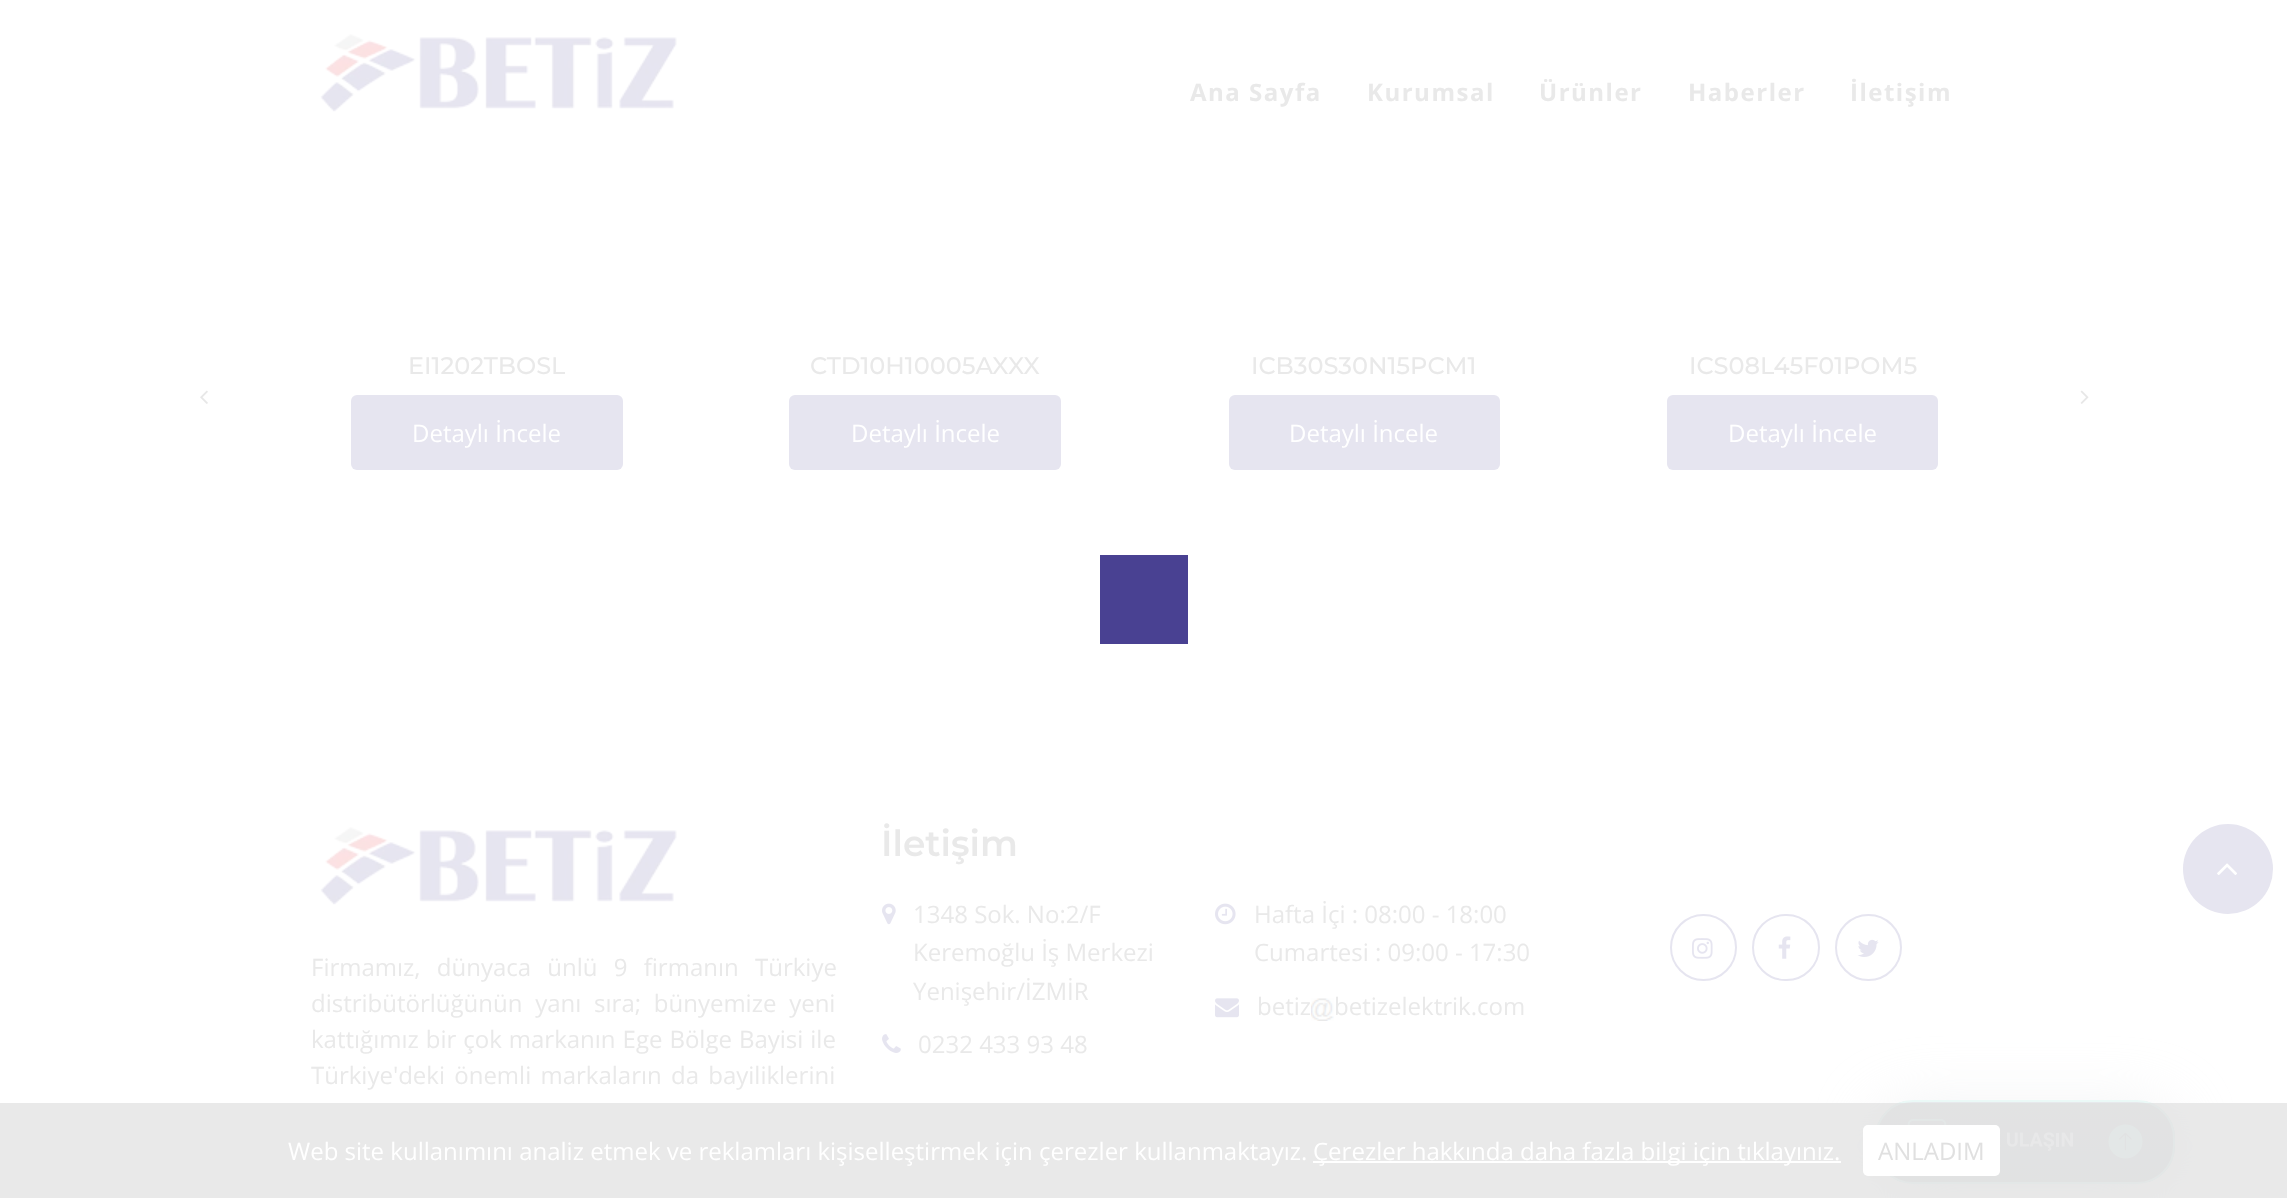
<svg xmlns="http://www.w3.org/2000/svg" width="2287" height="1198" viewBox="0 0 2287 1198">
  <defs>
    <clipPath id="clip1"><rect x="1875" y="1100" width="300" height="84" rx="38"/></clipPath>
    <linearGradient id="g1" gradientUnits="userSpaceOnUse" x1="2025" y1="1101" x2="2025" y2="1182"><stop offset="0" stop-color="#e7e9ec"/><stop offset="1" stop-color="#e4e6e8"/></linearGradient>
  </defs>
  <rect width="100%" height="100%" fill="#fff"/>
  <image x="320" y="34" width="357" height="78" href="img/1.png"/>
  <rect x="351" y="395" width="272" height="75" rx="6" fill="#e6e5f0"/>
  <rect x="789" y="395" width="272" height="75" rx="6" fill="#e6e5f0"/>
  <rect x="1229" y="395" width="271" height="75" rx="6" fill="#e6e5f0"/>
  <rect x="1667" y="395" width="271" height="75" rx="6" fill="#e6e5f0"/>
  <image x="200" y="390" width="8" height="14" href="img/2.png"/>
  <image x="2080" y="390" width="9" height="14" href="img/3.png"/>
  <path d="M1100 555h88v29H1100z" fill="#494192"/>
  <path d="M1100 584h88v30H1100z" fill="#494192"/>
  <path d="M1100 614h88v30H1100z" fill="#494192"/>
  <image x="882" y="903" width="14" height="22" href="img/4.png"/>
  <image x="882" y="1034" width="19" height="19" href="img/5.png"/>
  <image x="1215" y="903" width="21" height="22" href="img/6.png"/>
  <image x="1215" y="998" width="24" height="20" href="img/7.png"/>
  <image x="1311" y="998" width="23" height="23" href="img/8.png"/>
  <circle cx="1703.5" cy="947.5" r="32.5" fill="none" stroke="#e6e5f0" stroke-width="2"/>
  <image x="1692" y="938" width="21" height="21" href="img/9.png"/>
  <rect x="1753" y="915" width="66" height="65" rx="32.5" fill="none" stroke="#e6e5f0" stroke-width="2"/>
  <image x="1778" y="936" width="13" height="23" href="img/10.png"/>
  <circle cx="1868.5" cy="947.5" r="32.5" fill="none" stroke="#e6e5f0" stroke-width="2"/>
  <image x="1857" y="939" width="22" height="18" href="img/11.png"/>
  <image x="320" y="827" width="357" height="78" href="img/12.png"/>
  <circle cx="2228" cy="869" r="45" fill="#e6e5f0"/>
  <image x="2217" y="863" width="21" height="12" href="img/13.png"/>
  <rect x="1875" y="1104" width="300" height="84" rx="38" fill="#e7e9ec80" filter="blur(30px)"/>
  <g clip-path="url(#clip1)">
    <path d="M1877 1101h298v81H1877z" fill="url(#g1)"/>
  </g>
  <rect x="1876" y="1101" width="298" height="82" rx="37" fill="none" stroke="#ebf9f7" stroke-width="2"/>
  <image x="1907" y="1119" width="236" height="40" href="img/14.png"/>
  <path d="M0 1103h2287v95H0z" fill="#e0e0e0b3"/>
  <path d="M1313 1161h528v2H1313z" fill="#fff"/>
  <rect x="1863" y="1125" width="137" height="51" rx="5" fill="#fff"/>
  <g font-family="Open Sans" font-size="24" font-weight="bold" letter-spacing="1.5" fill="#e9e9e9">
    <text x="1190" y="101">Ana Sayfa</text>
    <text x="1367" y="101">Kurumsal</text>
    <text x="1539" y="101">Ürünler</text>
    <text x="1688" y="101">Haberler</text>
    <text x="1850" y="101">İletişim</text>
  </g>
  <text x="408" y="374" font-family="Montserrat" font-size="24" font-weight="500" fill="#e9e9e9">EI1202TBOSL</text>
  <text x="412" y="442" font-family="Open Sans" font-size="24" fill="#fff">Detaylı İncele</text>
  <text x="810" y="374" font-family="Montserrat" font-size="24" font-weight="500" fill="#e9e9e9">CTD10H10005AXXX</text>
  <text x="851" y="442" font-family="Open Sans" font-size="24" fill="#fff">Detaylı İncele</text>
  <text x="1251" y="374" font-family="Montserrat" font-size="24" font-weight="500" fill="#e9e9e9">ICB30S30N15PCM1</text>
  <text x="1289" y="442" font-family="Open Sans" font-size="24" fill="#fff">Detaylı İncele</text>
  <text x="1689" y="374" font-family="Montserrat" font-size="24" font-weight="500" fill="#e9e9e9">ICS08L45F01POM5</text>
  <text x="1728" y="442" font-family="Open Sans" font-size="24" fill="#fff">Detaylı İncele</text>
  <text x="881" y="856" font-family="Montserrat" font-size="36" font-weight="600" fill="#e9e9e9">İletişim</text>
  <g font-family="Open Sans" font-size="24" fill="#e9e9e9">
    <text x="913" y="923">1348 Sok. No:2/F</text>
    <text x="913" y="961">Keremoğlu İş Merkezi</text>
    <text x="913" y="1000">Yenişehir/İZMİR</text>
    <text x="918" y="1053">0232 433 93 48</text>
    <text x="1254" y="923">Hafta İçi : 08:00 - 18:00</text>
    <text x="1254" y="961">Cumartesi : 09:00 - 17:30</text>
    <text x="1257" y="1015">betiz</text>
    <text x="1334" y="1015">betizelektrik.com</text>
    <text x="311" y="976" word-spacing="10">Firmamız, dünyaca ünlü 9 firmanın Türkiye</text>
    <text x="311" y="1012" word-spacing="6.5">distribütörlüğünün yanı sıra; bünyemize yeni</text>
    <text x="311" y="1048" word-spacing="0.75">kattığımız bir çok markanın Ege Bölge Bayisi ile</text>
    <text x="311" y="1084" word-spacing="3">Türkiye'deki önemli markaların da bayiliklerini</text>
  </g>
  <g font-family="Open Sans" font-size="24" fill="#fff">
    <text x="288" y="1160">Web site kullanımını analiz etmek ve reklamları kişiselleştirmek için çerezler kullanmaktayız.</text>
    <text x="1313" y="1160">Çerezler hakkında daha fazla bilgi için tıklayınız.</text>
  </g>
  <text x="1878" y="1160" font-family="Open Sans" font-size="24" fill="#e0e0e0">ANLADIM</text>
</svg>
